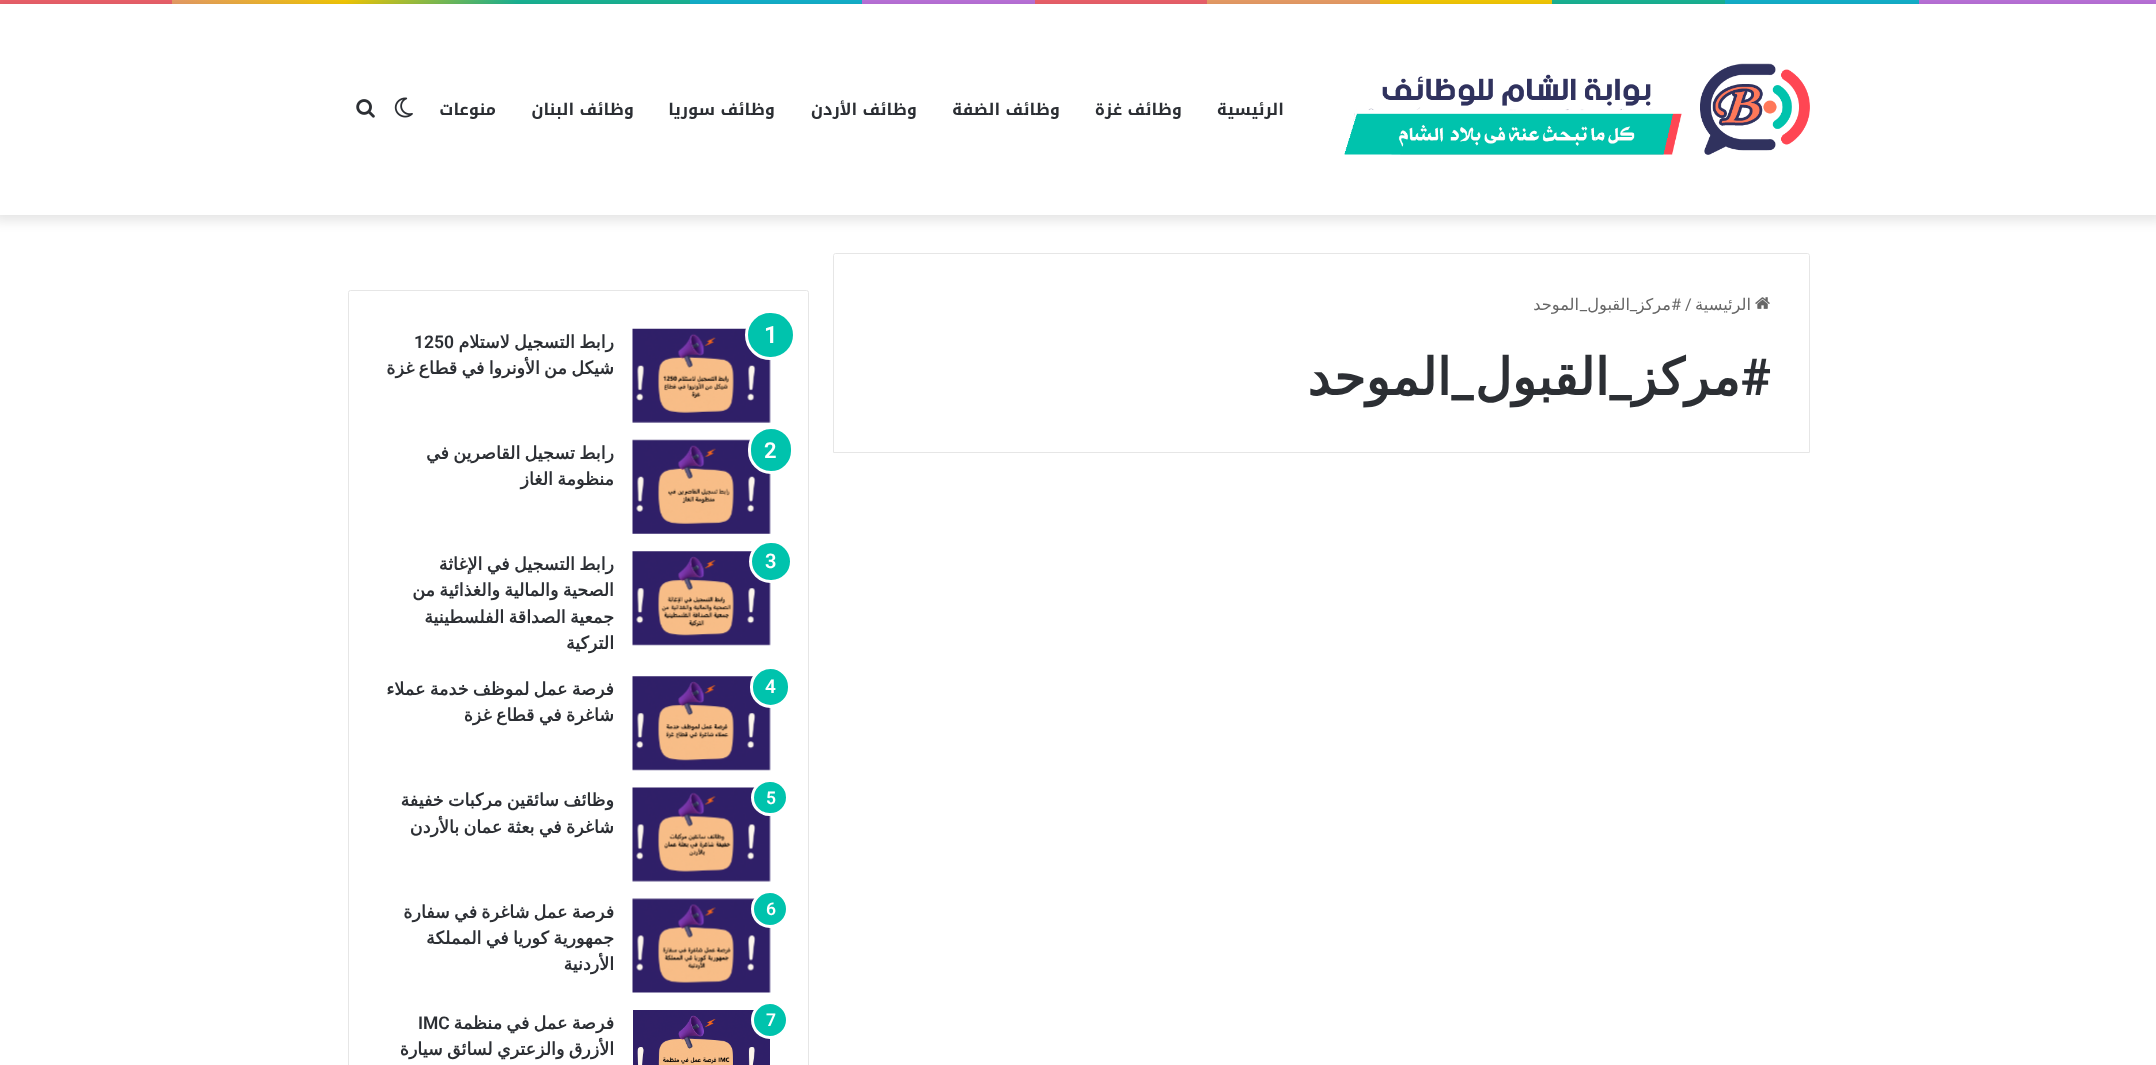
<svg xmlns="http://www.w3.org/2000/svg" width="2156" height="1065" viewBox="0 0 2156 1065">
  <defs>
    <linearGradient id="g1" gradientUnits="userSpaceOnUse" x1="0" y1="1.9" x2="2156" y2="1.9"><stop offset="0" stop-color="#f76570"/><stop offset="0.08" stop-color="#f76570"/><stop offset="0.08" stop-color="#f3a46b"/><stop offset="0.16" stop-color="#ffd205"/><stop offset="0.24" stop-color="#1bbc9b"/><stop offset="0.32" stop-color="#1bbc9b"/><stop offset="0.32" stop-color="#14b9d5"/><stop offset="0.4" stop-color="#14b9d5"/><stop offset="0.4" stop-color="#c377e4"/><stop offset="0.48" stop-color="#c377e4"/><stop offset="0.48" stop-color="#f76570"/><stop offset="0.56" stop-color="#f76570"/><stop offset="0.56" stop-color="#f3a46b"/><stop offset="0.64" stop-color="#f3a46b"/><stop offset="0.64" stop-color="#ffd205"/><stop offset="0.72" stop-color="#ffd205"/><stop offset="0.72" stop-color="#1bbc9b"/><stop offset="0.8" stop-color="#1bbc9b"/><stop offset="0.8" stop-color="#14b9d5"/><stop offset="0.89" stop-color="#14b9d5"/><stop offset="0.89" stop-color="#c377e4"/><stop offset="1" stop-color="#c377e4"/></linearGradient>
    <clipPath id="clip1"><path d="M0 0H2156V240H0ZM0 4H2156V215H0Z" clip-rule="evenodd"/></clipPath>
  </defs>
  <rect width="100%" height="100%" fill="#fff"/>
  <path d="M0 0h2156v4H0z" fill="url(#g1)"/>
  <g clip-path="url(#clip1)">
    <path d="M-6 -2h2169v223H-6z" fill="#0000001a" filter="blur(6px)"/>
  </g>
  <image x="1344" y="63" width="466" height="92" href="img/1.png"/>
  <image x="394" y="97" width="19" height="21" href="img/2.png"/>
  <image x="356" y="99" width="19" height="19" href="img/3.png"/>
  <path d="M835.5 253.5H1807.5C1808.5 253.5 1809.5 254.5 1809.5 255.5V452.5H833.5V255.5C833.5 254.5 834.5 253.5 835.5 253.5Z" fill="none" stroke="#e6e6e6"/>
  <image x="1755" y="297" width="15" height="12" href="img/4.png"/>
  <rect x="348.5" y="290.5" width="460" height="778" rx="2" fill="none" stroke="#e6e6e6"/>
  <image x="632" y="328" width="139" height="95" href="img/5.png"/>
  <rect x="746.5" y="311.5" width="48" height="47" rx="23.5" fill="#00c3ad" stroke="#fff" stroke-width="3"/>
  <image x="632" y="439" width="139" height="95" href="img/6.png"/>
  <rect x="749.5" y="427.5" width="43" height="45" rx="21.5" fill="#00c3ad" stroke="#fff" stroke-width="3"/>
  <image x="632" y="551" width="139" height="95" href="img/7.png"/>
  <rect x="750.5" y="541.5" width="41" height="40" rx="20" fill="#00c3ad" stroke="#fff" stroke-width="3"/>
  <image x="632" y="676" width="139" height="95" href="img/8.png"/>
  <rect x="751.5" y="667.5" width="38" height="39" rx="19" fill="#00c3ad" stroke="#fff" stroke-width="3"/>
  <image x="632" y="787" width="139" height="95" href="img/9.png"/>
  <rect x="752.5" y="780.5" width="35" height="34" rx="17" fill="#00c3ad" stroke="#fff" stroke-width="3"/>
  <image x="632" y="898" width="139" height="95" href="img/10.png"/>
  <circle cx="770" cy="909" r="17.5" fill="#00c3ad" stroke="#fff" stroke-width="3"/>
  <image x="633" y="1010" width="137" height="55" href="img/11.png"/>
  <circle cx="770" cy="1020" r="17.5" fill="#00c3ad" stroke="#fff" stroke-width="3"/>
  <g font-family="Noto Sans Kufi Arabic" font-size="16.25" font-weight="bold" direction="rtl" fill="#2c2f34">
    <text x="1284" y="115">الرئيسية</text>
    <text x="1182" y="115">وظائف غزة</text>
    <text x="1060" y="115">وظائف الضفة</text>
    <text x="917" y="115">وظائف الأردن</text>
    <text x="775" y="115">وظائف سوريا</text>
    <text x="634" y="115">وظائف البنان</text>
    <text x="496" y="115">منوعات</text>
  </g>
  <text x="1751" y="310" font-family="DejaVu Sans" font-size="16.25" direction="rtl" fill="#666">الرئيسية</text>
  <text x="1685" y="310" font-family="Roboto" font-size="16.25" fill="#666">/</text>
  <g font-family="Roboto" font-size="16.25" direction="rtl" fill="#666">
    <text x="1681" y="310">#</text>
    <text x="1637" y="310">_</text>
  </g>
  <g font-family="DejaVu Sans" font-size="16.25" direction="rtl" fill="#666">
    <text x="1671" y="310">مركز</text>
    <text x="1630" y="310">القبول</text>
  </g>
  <text x="1587" y="310" font-family="Roboto" font-size="16.25" direction="rtl" fill="#666">_</text>
  <text x="1579" y="310" font-family="DejaVu Sans" font-size="16.25" direction="rtl" fill="#666">الموحد</text>
  <text x="1771" y="395" font-family="Roboto" font-size="51" font-weight="bold" direction="rtl" fill="#2c2f34">#</text>
  <g font-family="DejaVu Sans" font-size="51" font-weight="bold" direction="rtl" fill="#2c2f34">
    <text x="1609" y="395">القبول</text>
    <text x="1451" y="395">الموحد</text>
  </g>
  <text x="1632" y="395" font-family="Roboto" font-size="51" font-weight="bold" direction="rtl" fill="#2c2f34">_</text>
  <text x="1740" y="395" font-family="DejaVu Sans" font-size="51" font-weight="bold" direction="rtl" fill="#2c2f34">مركز</text>
  <text x="1474" y="395" font-family="Roboto" font-size="51" font-weight="bold" direction="rtl" fill="#2c2f34">_</text>
  <text x="764" y="343" font-family="Roboto" font-size="24" font-weight="600" fill="#fff">1</text>
  <text x="614" y="348" word-spacing="-1.25" font-family="DejaVu Sans" font-size="17.5" font-weight="bold" direction="rtl" fill="#2c2f34">رابط التسجيل لاستلام</text>
  <text x="414" y="348" font-family="Roboto" font-size="17.5" font-weight="600" fill="#2c2f34">1250</text>
  <text x="614" y="374" word-spacing="-1.25" font-family="DejaVu Sans" font-size="17.5" font-weight="bold" direction="rtl" fill="#2c2f34">شيكل من الأونروا في قطاع غزة</text>
  <text x="764" y="458" font-family="Roboto" font-size="22" font-weight="600" fill="#fff">2</text>
  <g font-family="DejaVu Sans" font-size="17.5" font-weight="bold" direction="rtl" fill="#2c2f34">
    <text x="614" y="459" word-spacing="-1.25">رابط تسجيل القاصرين في</text>
    <text x="614" y="485" word-spacing="-1.25">منظومة الغاز</text>
  </g>
  <text x="765" y="568" font-family="Roboto" font-size="20" font-weight="600" fill="#fff">3</text>
  <g font-family="DejaVu Sans" font-size="17.5" font-weight="bold" direction="rtl" fill="#2c2f34">
    <text x="614" y="570" word-spacing="-1.25">رابط التسجيل في الإغاثة</text>
    <text x="614" y="596" word-spacing="-1.25">الصحية والمالية والغذائية من</text>
    <text x="614" y="623" word-spacing="-1.25">جمعية الصداقة الفلسطينية</text>
    <text x="614" y="649">التركية</text>
  </g>
  <text x="765" y="693" font-family="Roboto" font-size="19" font-weight="600" fill="#fff">4</text>
  <g font-family="DejaVu Sans" font-size="17.5" font-weight="bold" direction="rtl" fill="#2c2f34">
    <text x="614" y="695" word-spacing="-1.25">فرصة عمل لموظف خدمة عملاء</text>
    <text x="614" y="721" word-spacing="-1.25">شاغرة في قطاع غزة</text>
  </g>
  <text x="766" y="804" font-family="Roboto" font-size="17.5" font-weight="600" fill="#fff">5</text>
  <g font-family="DejaVu Sans" font-size="17.5" font-weight="bold" direction="rtl" fill="#2c2f34">
    <text x="614" y="806" word-spacing="-1.25">وظائف سائقين مركبات خفيفة</text>
    <text x="614" y="833" word-spacing="-1.25">شاغرة في بعثة عمان بالأردن</text>
  </g>
  <text x="766" y="915" font-family="Roboto" font-size="17.5" font-weight="600" fill="#fff">6</text>
  <g font-family="DejaVu Sans" font-size="17.5" font-weight="bold" direction="rtl" fill="#2c2f34">
    <text x="614" y="918" word-spacing="-1.25">فرصة عمل شاغرة في سفارة</text>
    <text x="614" y="944" word-spacing="-1.25">جمهورية كوريا في المملكة</text>
    <text x="614" y="970">الأردنية</text>
  </g>
  <text x="766" y="1026" font-family="Roboto" font-size="17.5" font-weight="600" fill="#fff">7</text>
  <text x="614" y="1029" word-spacing="-1.25" font-family="DejaVu Sans" font-size="17.5" font-weight="bold" direction="rtl" fill="#2c2f34">فرصة عمل في منظمة</text>
  <text x="418" y="1029" font-family="Roboto" font-size="17.5" font-weight="600" fill="#2c2f34">IMC</text>
  <text x="614" y="1055" word-spacing="-1.25" font-family="DejaVu Sans" font-size="17.5" font-weight="bold" direction="rtl" fill="#2c2f34">الأزرق والزعتري لسائق سيارة</text>
</svg>
